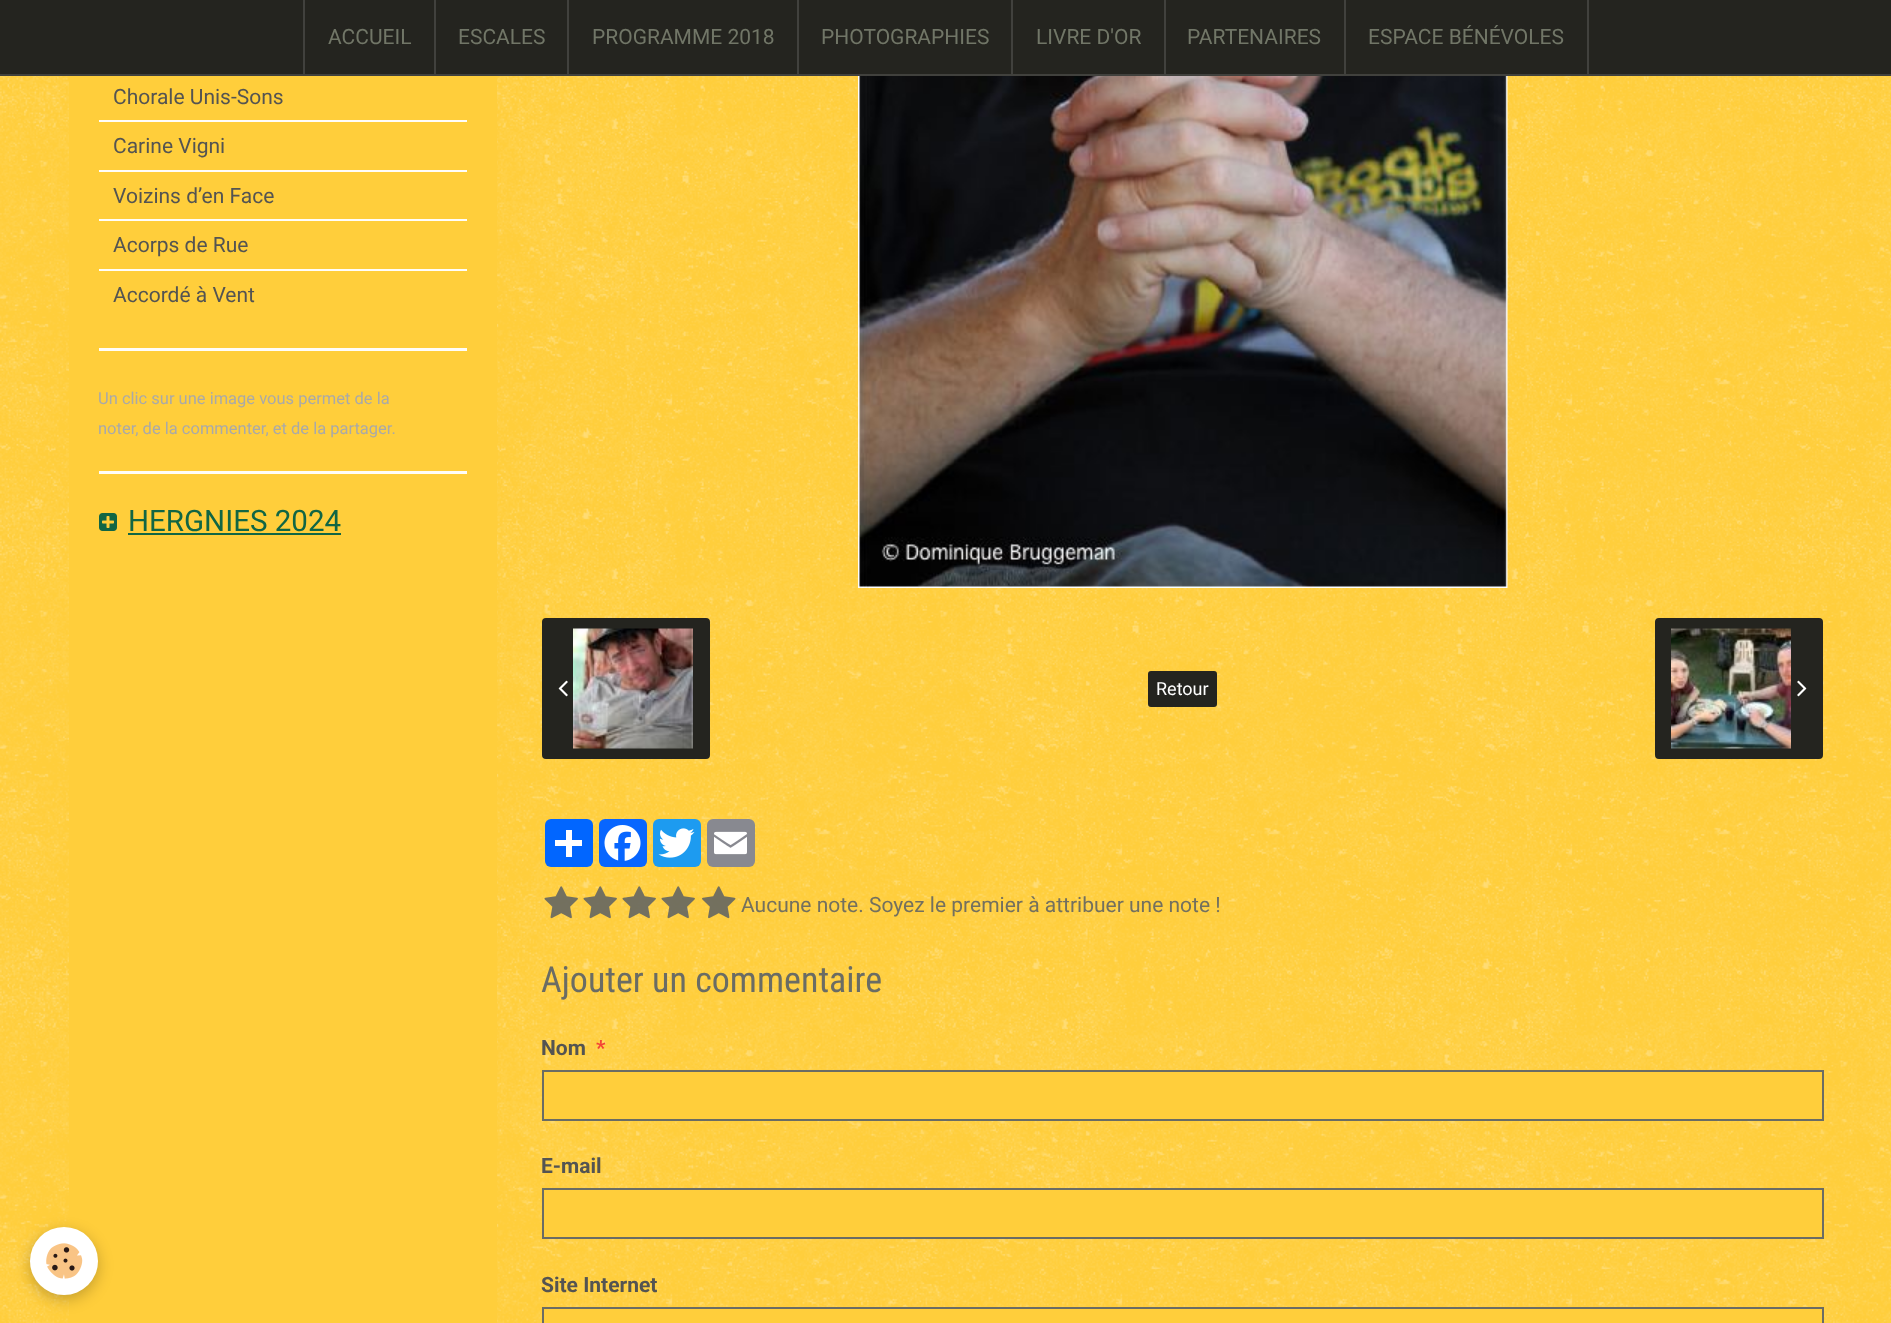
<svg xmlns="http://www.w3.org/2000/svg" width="1891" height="1323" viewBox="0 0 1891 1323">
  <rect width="100%" height="100%" fill="#ffce3b"/>
  <image x="0" y="76" width="1891" height="1247" href="img/1.png"/>
  <path d="M0 0h1891v74H0z" fill="#24241f"/>
  <path d="M0 74h1891v2H0z" fill="#41413d"/>
  <path d="M434 0h2v74H434z" fill="#41413d"/>
  <path d="M303 0h2v74H303z" fill="#41413d"/>
  <path d="M567 0h2v74H567z" fill="#41413d"/>
  <path d="M797 0h2v74H797z" fill="#41413d"/>
  <path d="M1011 0h2v74H1011z" fill="#41413d"/>
  <path d="M1164 0h2v74H1164z" fill="#41413d"/>
  <path d="M1344 0h2v74H1344z" fill="#41413d"/>
  <path d="M1587 0h2v74H1587z" fill="#41413d"/>
  <path d="M69 76h428v1247H69z" fill="#ffce3b"/>
  <rect x="30" y="1232" width="68" height="67" rx="33.5" fill="#0000003d" filter="blur(7.5px)"/>
  <circle cx="64" cy="1261" r="34" fill="#fff"/>
  <image x="46" y="1243" width="37" height="36" href="img/2.png"/>
  <path d="M99 348h368v3H99z" fill="#fffdfa"/>
  <path d="M99 120h368v2H99z" fill="#fffdfa"/>
  <path d="M99 170h368v2H99z" fill="#fffdfa"/>
  <path d="M99 219h368v2H99z" fill="#fffdfa"/>
  <path d="M99 269h368v2H99z" fill="#fffdfa"/>
  <path d="M99 471h368v3H99z" fill="#fffdfa"/>
  <image x="99" y="513" width="18" height="18" href="img/3.png"/>
  <path d="M128 533h213v2H128z" fill="#164"/>
  <image x="858" y="76" width="650" height="512" href="img/4.png"/>
  <rect x="543" y="619" width="166" height="139" rx="3" fill="#24241f" stroke="#24241f" stroke-width="2"/>
  <image x="558" y="680" width="10" height="17" href="img/5.png"/>
  <image x="573" y="628" width="120" height="121" href="img/6.png"/>
  <rect x="1149" y="672" width="67" height="34" rx="2" fill="#24241f" stroke="#24241f" stroke-width="2"/>
  <rect x="1656" y="619" width="166" height="139" rx="3" fill="#24241f" stroke="#24241f" stroke-width="2"/>
  <image x="1671" y="628" width="120" height="121" href="img/7.png"/>
  <image x="1797" y="680" width="10" height="17" href="img/8.png"/>
  <rect x="545" y="819" width="48" height="48" rx="6" fill="#0166ff"/>
  <path d="M566 830h6v27H566z" fill="#fff"/>
  <path d="M555 840h27v6H555z" fill="#fff"/>
  <rect x="599" y="819" width="48" height="48" rx="6" fill="#0866ff"/>
  <image x="604" y="825" width="37" height="36" href="img/9.png"/>
  <rect x="653" y="819" width="48" height="48" rx="6" fill="#1d9bf0"/>
  <image x="658" y="828" width="37" height="30" href="img/10.png"/>
  <rect x="707" y="819" width="48" height="48" rx="6" fill="#888990"/>
  <image x="714" y="831" width="33" height="24" href="img/11.png"/>
  <image x="544" y="886" width="34" height="33" href="img/12.png"/>
  <image x="583" y="886" width="34" height="33" href="img/13.png"/>
  <image x="622" y="886" width="34" height="33" href="img/14.png"/>
  <image x="661" y="886" width="34" height="33" href="img/15.png"/>
  <image x="702" y="886" width="34" height="33" href="img/16.png"/>
  <path d="M543 1071h1280v49H543z" fill="#ffce3b" stroke="#6a6c64" stroke-width="2"/>
  <path d="M543 1189h1280v49H543z" fill="#ffce3b" stroke="#6a6c64" stroke-width="2"/>
  <path d="M543 1308h1280v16H543z" fill="#ffce3b" stroke="#6a6c64" stroke-width="2"/>
  <g font-family="Roboto" font-size="21" fill="#717667">
    <text x="328" y="44">ACCUEIL</text>
    <text x="458" y="44">ESCALES</text>
    <text x="592" y="44">PROGRAMME 2018</text>
    <text x="821" y="44">PHOTOGRAPHIES</text>
    <text x="1036" y="44">LIVRE D'OR</text>
    <text x="1187" y="44">PARTENAIRES</text>
    <text x="1368" y="44">ESPACE BÉNÉVOLES</text>
  </g>
  <g font-family="Roboto" font-size="21" fill="#545452">
    <text x="113" y="104">Chorale Unis-Sons</text>
    <text x="113" y="153">Carine Vigni</text>
    <text x="113" y="203">Voizins d’en Face</text>
    <text x="113" y="252">Acorps de Rue</text>
    <text x="113" y="302">Accordé à Vent</text>
  </g>
  <g font-family="Roboto" font-size="16.5" fill="#a9a9a9">
    <text x="98" y="404">Un clic sur une image vous permet de la</text>
    <text x="98" y="434">noter, de la commenter, et de la partager.</text>
  </g>
  <text x="128" y="531" font-family="Roboto" font-size="29.5" fill="#164">HERGNIES 2024</text>
  <text x="1156" y="695" font-family="Roboto" font-size="18" fill="#fff">Retour</text>
  <text x="741" y="912" font-family="Roboto" font-size="21" fill="#73705f">Aucune note. Soyez le premier à attribuer une note !</text>
  <text x="541" y="992" font-family="Roboto Condensed" font-size="36" fill="#6a6c64">Ajouter un commentaire</text>
  <text x="541" y="1055" font-family="Roboto" font-size="21" font-weight="bold" fill="#545452">Nom</text>
  <text x="596" y="1055" font-family="Roboto" font-size="21" font-weight="bold" fill="#f44336">*</text>
  <g font-family="Roboto" font-size="21" font-weight="bold" fill="#545452">
    <text x="541" y="1173">E-mail</text>
    <text x="541" y="1292">Site Internet</text>
  </g>
</svg>
